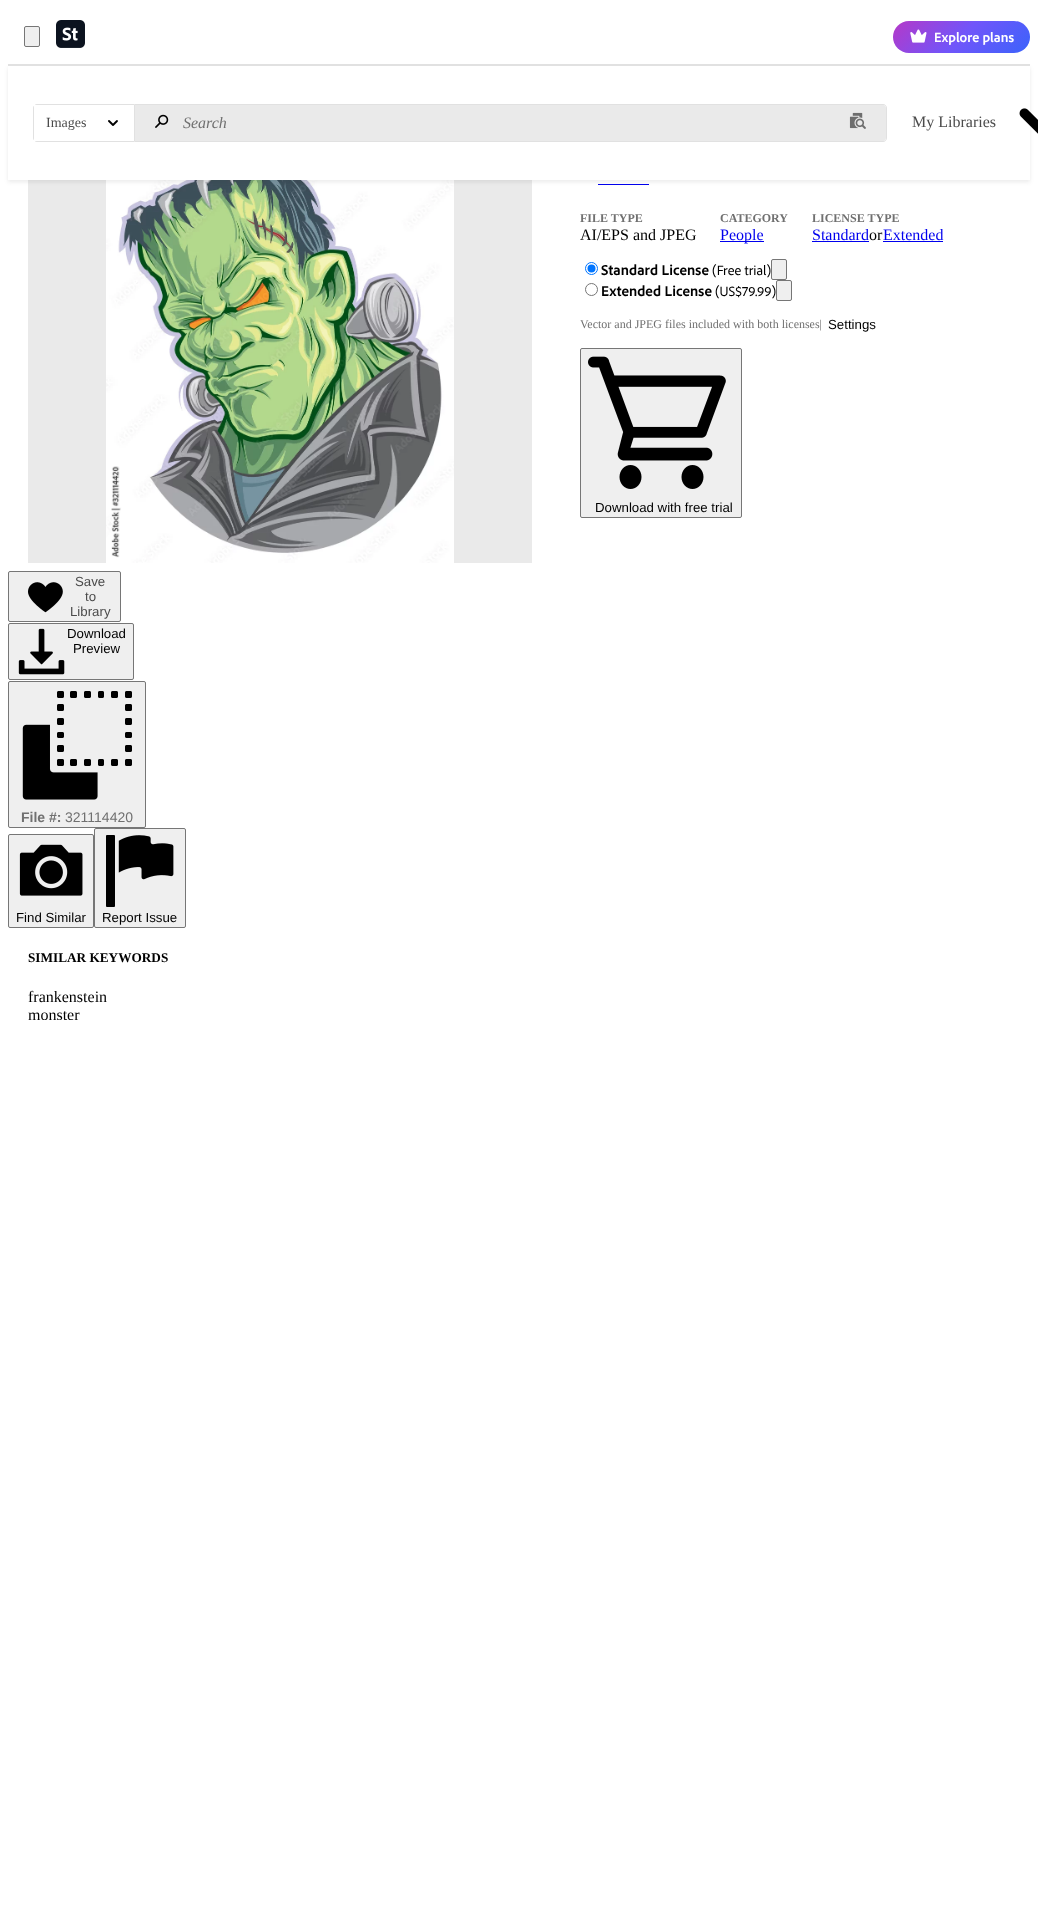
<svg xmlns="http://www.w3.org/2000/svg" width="1038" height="1906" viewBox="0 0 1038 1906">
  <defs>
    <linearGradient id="g1" gradientUnits="userSpaceOnUse" x1="919" y1="-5.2" x2="1004" y2="79"><stop offset="0" stop-color="#b539c8"/><stop offset="0.5" stop-color="#7155fa"/><stop offset="1" stop-color="#3b63fb"/></linearGradient>
    <clipPath id="clip1"><path d="M28 988h982v32H28z"/></clipPath>
  </defs>
  <rect width="100%" height="100%" fill="#fff"/>
  <path d="M598 184h51v1H598z" fill="#00e"/>
  <path d="M28 180h504v383H28z" fill="#eaeaea"/>
  <image x="106" y="180" width="348" height="383" href="img/8.png"/>
  <path d="M8 68h1022v114H8z" fill="#3434341a" filter="blur(2px)"/>
  <path d="M8 64h1022v2H8z" fill="#e1e1e1"/>
  <rect x="24.5" y="26.5" width="15" height="20" rx="1.5" fill="#efefef" stroke="#767676"/>
  <image x="56" y="20" width="29" height="28" href="img/1.png"/>
  <rect x="893" y="21" width="137" height="32" rx="16" fill="url(#g1)"/>
  <image x="910" y="29" width="17" height="14" href="img/2.png"/>
  <path d="M8 66h1022v114H8z" fill="#fff"/>
  <path d="M37 104.5H134.5V141.5H37C35 141.5 33.5 140 33.5 138V108C33.5 106 35 104.5 37 104.5Z" fill="none" stroke="#e1e1e1"/>
  <path d="M34 105h3v36H34z" fill="#fff"/>
  <image x="108" y="120" width="10" height="6" href="img/3.png"/>
  <path d="M135 105H883C884.5 105 886 106.5 886 108V138C886 139.5 884.5 141 883 141H135Z" fill="#eaeaea"/>
  <path d="M135 104H883C885 104 887 106 887 108V138C887 140 885 142 883 142H135ZM135 105H883C885 105 886 106 886 108V138C886 140 885 141 883 141H135Z" fill="#e1e1e1" fill-rule="evenodd"/>
  <image x="155" y="114" width="14" height="14" href="img/4.png"/>
  <image x="849" y="112" width="17" height="17" href="img/5.png"/>
  <image x="1019" y="108" width="19" height="26" href="img/6.png"/>
  <path d="M720 241h44v1H720z" fill="#00e"/>
  <path d="M812 241h57v1H812z" fill="#00e"/>
  <path d="M883 241h60v1H883z" fill="#00e"/>
  <circle cx="591.5" cy="268.5" r="6" fill="none" stroke="#0075ff"/>
  <circle cx="591.5" cy="268.5" r="4" fill="#0075ff"/>
  <rect x="771.5" y="259.5" width="15" height="20" rx="1.5" fill="#efefef" stroke="#767676"/>
  <circle cx="591.5" cy="289.5" r="6" fill="none" stroke="#767676"/>
  <rect x="776.5" y="280.5" width="15" height="20" rx="1.5" fill="#efefef" stroke="#767676"/>
  <rect x="580.5" y="348.5" width="161" height="169" rx="1.5" fill="#efefef" stroke="#767676"/>
  <image x="588" y="356" width="138" height="133" href="img/7.png"/>
  <rect x="8.5" y="571.5" width="112" height="50" rx="1.5" fill="#efefef" stroke="#767676"/>
  <image x="28" y="582" width="35" height="31" href="img/9.png"/>
  <rect x="8.5" y="623.5" width="125" height="56" rx="1.5" fill="#efefef" stroke="#767676"/>
  <image x="18" y="628" width="47" height="47" href="img/10.png"/>
  <rect x="8.5" y="681.5" width="137" height="146" rx="1.5" fill="#efefef" stroke="#767676"/>
  <image x="22" y="691" width="110" height="109" href="img/11.png"/>
  <rect x="8.5" y="834.5" width="85" height="93" rx="1.5" fill="#efefef" stroke="#767676"/>
  <image x="19" y="844" width="64" height="52" href="img/12.png"/>
  <rect x="94.5" y="828.5" width="91" height="99" rx="1.5" fill="#efefef" stroke="#767676"/>
  <image x="106" y="835" width="68" height="72" href="img/13.png"/>
  <text x="934" y="42" font-family="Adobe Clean" font-size="14" font-weight="bold" fill="#fff">Explore plans</text>
  <text x="46" y="127" font-family="Liberation Serif" font-size="14" fill="#4b4b4b">Images</text>
  <text x="183" y="128" font-family="Liberation Serif" font-size="16" font-style="italic" fill="#707070">Search</text>
  <text x="912" y="127" font-family="Liberation Serif" font-size="16" fill="#4b4b4b">My Libraries</text>
  <text x="580" y="222" font-family="Liberation Serif" font-size="12" font-weight="bold" fill="#707070">FILE TYPE</text>
  <text x="580" y="240" font-family="Liberation Serif" font-size="16" fill="#000">AI/EPS and JPEG</text>
  <text x="720" y="222" font-family="Liberation Serif" font-size="12" font-weight="bold" fill="#707070">CATEGORY</text>
  <text x="720" y="240" font-family="Liberation Serif" font-size="16" fill="#00e">People</text>
  <text x="812" y="222" font-family="Liberation Serif" font-size="12" font-weight="bold" fill="#707070">LICENSE TYPE</text>
  <text x="812" y="240" font-family="Liberation Serif" font-size="16" fill="#00e">Standard</text>
  <text x="869" y="240" font-family="Liberation Serif" font-size="16" fill="#000">or</text>
  <text x="883" y="240" font-family="Liberation Serif" font-size="16" fill="#00e">Extended</text>
  <text x="601" y="275" font-family="Adobe Clean" font-size="15" font-weight="bold" fill="#000">Standard License</text>
  <text x="712" y="275" font-family="Adobe Clean" font-size="14" fill="#000">(Free trial)</text>
  <text x="601" y="296" font-family="Adobe Clean" font-size="15" font-weight="bold" fill="#000">Extended License</text>
  <text x="715" y="296" font-family="Adobe Clean" font-size="14" fill="#000">(US$79.99)</text>
  <text x="580" y="328" font-family="Liberation Serif" font-size="12" fill="#707070">Vector and JPEG files included with both licenses|</text>
  <g font-family="Liberation Sans" font-size="13.25" fill="#000">
    <text x="828" y="329">Settings</text>
    <text x="595" y="512">Download with free trial</text>
  </g>
  <g font-family="Liberation Sans" font-size="13.25" fill="#4b4b4b">
    <text x="75" y="586">Save</text>
    <text x="85" y="601">to</text>
    <text x="70" y="616">Library</text>
  </g>
  <g font-family="Liberation Sans" font-size="13.25" fill="#000">
    <text x="67" y="638">Download</text>
    <text x="73" y="653">Preview</text>
  </g>
  <text x="21" y="822" font-family="Liberation Sans" font-size="14" font-weight="bold" fill="#707070">File #:</text>
  <text x="65" y="822" font-family="Liberation Sans" font-size="14" fill="#707070">321114420</text>
  <g font-family="Liberation Sans" font-size="13.25" fill="#000">
    <text x="16" y="922">Find Similar</text>
    <text x="102" y="922">Report Issue</text>
  </g>
  <text x="28" y="962" font-family="Liberation Serif" font-size="13.25" font-weight="bold" fill="#000">SIMILAR KEYWORDS</text>
  <text x="28" y="1002" font-family="Liberation Serif" font-size="16" fill="#000">frankenstein</text>
  <g clip-path="url(#clip1)">
    <text x="28" y="1020" font-family="Liberation Serif" font-size="16" fill="#000">monster</text>
  </g>
</svg>
